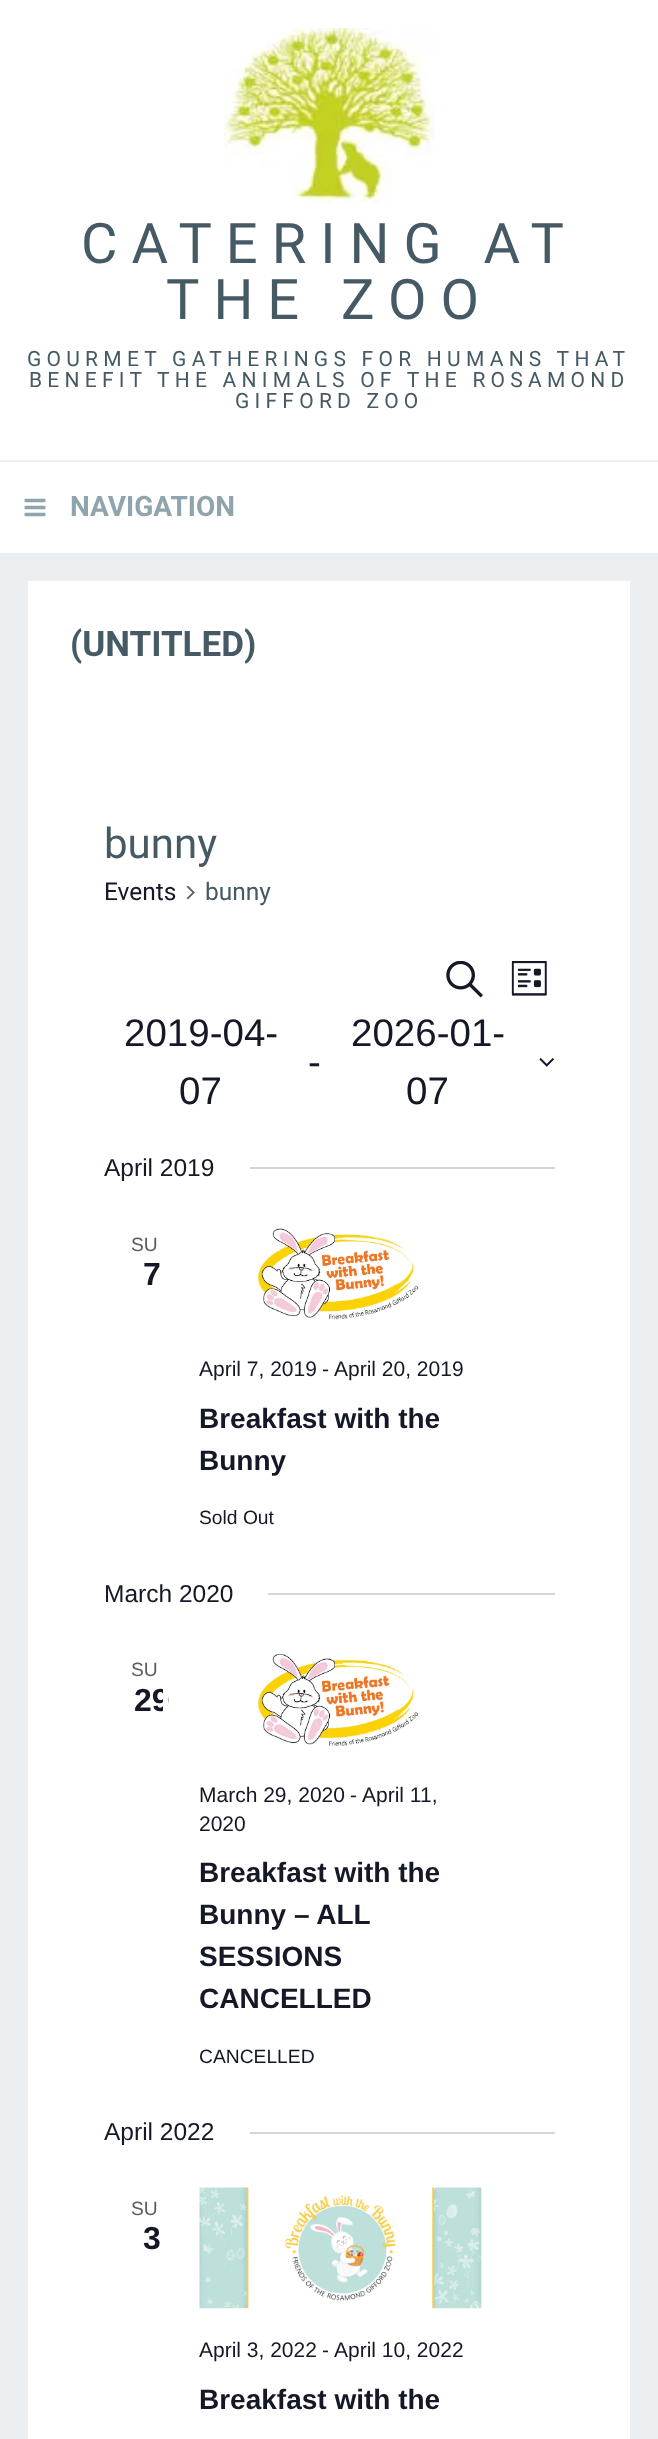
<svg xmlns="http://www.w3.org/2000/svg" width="658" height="2439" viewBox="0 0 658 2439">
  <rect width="100%" height="100%" fill="#eceff1"/>
  <path d="M0 0h658v460H0z" fill="#fff"/>
  <image x="224" y="28" width="211" height="175" href="img/1.png"/>
  <path d="M0 462h658v91H0z" fill="#fff"/>
  <image x="24" y="498" width="22" height="19" href="img/2.png"/>
  <path d="M28 581h602v1858H28z" fill="#fff"/>
  <image x="186" y="886" width="9" height="14" href="img/3.png"/>
  <image x="446" y="961" width="37" height="37" href="img/4.png"/>
  <image x="511" y="961" width="36" height="35" href="img/5.png"/>
  <image x="539" y="1058" width="16" height="9" href="img/6.png"/>
  <path d="M250 1167h305v2H250z" fill="#d5d5d5"/>
  <image x="257" y="1228" width="162" height="92" href="img/7.png"/>
  <path d="M268 1593h287v2H268z" fill="#d5d5d5"/>
  <image x="257" y="1654" width="162" height="93" href="img/8.png"/>
  <path d="M250 2132h305v2H250z" fill="#d5d5d5"/>
  <image x="199" y="2187" width="283" height="122" href="img/9.png"/>
  <g font-family="Roboto" font-size="56" letter-spacing="14" fill="#455a64">
    <text x="81" y="263">CATERING AT</text>
    <text x="166" y="319">THE ZOO</text>
  </g>
  <g font-family="Roboto" font-size="21" letter-spacing="5.25" fill="#455a64">
    <text x="27" y="366">GOURMET GATHERINGS FOR HUMANS THAT</text>
    <text x="29" y="387">BENEFIT THE ANIMALS OF THE ROSAMOND</text>
    <text x="235" y="408">GIFFORD ZOO</text>
  </g>
  <text x="70" y="516" font-family="Roboto" font-size="28" font-weight="bold" fill="#90a4ae">NAVIGATION</text>
  <text x="70" y="656" font-family="Roboto" font-size="35" font-weight="bold" fill="#455a64">(UNTITLED)</text>
  <text x="104" y="858" font-family="Roboto" font-size="42" fill="#455a64">bunny</text>
  <text x="104" y="900" font-family="Roboto" font-size="24.5" fill="#141827">Events</text>
  <text x="205" y="900" font-family="Roboto" font-size="24.5" fill="#455a64">bunny</text>
  <g font-family="Liberation Sans" font-size="38.5" fill="#141827">
    <text x="124" y="1046">2019-04-</text>
    <text x="179" y="1104">07</text>
    <text x="308" y="1075">-</text>
    <text x="351" y="1046">2026-01-</text>
    <text x="406" y="1104">07</text>
  </g>
  <text x="104" y="1176" font-family="Liberation Sans" font-size="24.5" fill="#141827">April 2019</text>
  <text x="131" y="1251" font-family="Liberation Sans" font-size="19.25" fill="#5d5d5d">SU</text>
  <text x="143" y="1285" font-family="Liberation Sans" font-size="32" font-weight="bold" fill="#141827">7</text>
  <g font-family="Liberation Sans" font-size="21" fill="#141827">
    <text x="199" y="1376">April 7, 2019</text>
    <text x="322" y="1376">-</text>
    <text x="334" y="1376">April 20, 2019</text>
  </g>
  <g font-family="Liberation Sans" font-size="28" font-weight="bold" fill="#141827">
    <text x="199" y="1428">Breakfast with the</text>
    <text x="199" y="1470">Bunny</text>
  </g>
  <text x="199" y="1524" font-family="Liberation Sans" font-size="19.25" fill="#141827">Sold Out</text>
  <text x="104" y="1602" font-family="Liberation Sans" font-size="24.5" fill="#141827">March 2020</text>
  <text x="131" y="1676" font-family="Liberation Sans" font-size="19.25" fill="#5d5d5d">SU</text>
  <text x="134" y="1711" font-family="Liberation Sans" font-size="32" font-weight="bold" fill="#141827">29</text>
  <path d="M163 1689h5v22H163z" fill="#fff"/>
  <g font-family="Liberation Sans" font-size="21" fill="#141827">
    <text x="199" y="1802">March 29, 2020</text>
    <text x="350" y="1802">-</text>
    <text x="362" y="1802">April 11,</text>
    <text x="199" y="1831">2020</text>
  </g>
  <g font-family="Liberation Sans" font-size="28" font-weight="bold" fill="#141827">
    <text x="199" y="1882">Breakfast with the</text>
    <text x="199" y="1924">Bunny – ALL</text>
    <text x="199" y="1966">SESSIONS</text>
    <text x="199" y="2008">CANCELLED</text>
  </g>
  <text x="199" y="2063" font-family="Liberation Sans" font-size="19.25" fill="#141827">CANCELLED</text>
  <text x="104" y="2140" font-family="Liberation Sans" font-size="24.5" fill="#141827">April 2022</text>
  <text x="131" y="2215" font-family="Liberation Sans" font-size="19.25" fill="#5d5d5d">SU</text>
  <text x="143" y="2249" font-family="Liberation Sans" font-size="32" font-weight="bold" fill="#141827">3</text>
  <g font-family="Liberation Sans" font-size="21" fill="#141827">
    <text x="199" y="2357">April 3, 2022</text>
    <text x="322" y="2357">-</text>
    <text x="334" y="2357">April 10, 2022</text>
  </g>
  <text x="199" y="2409" font-family="Liberation Sans" font-size="28" font-weight="bold" fill="#141827">Breakfast with the</text>
</svg>
